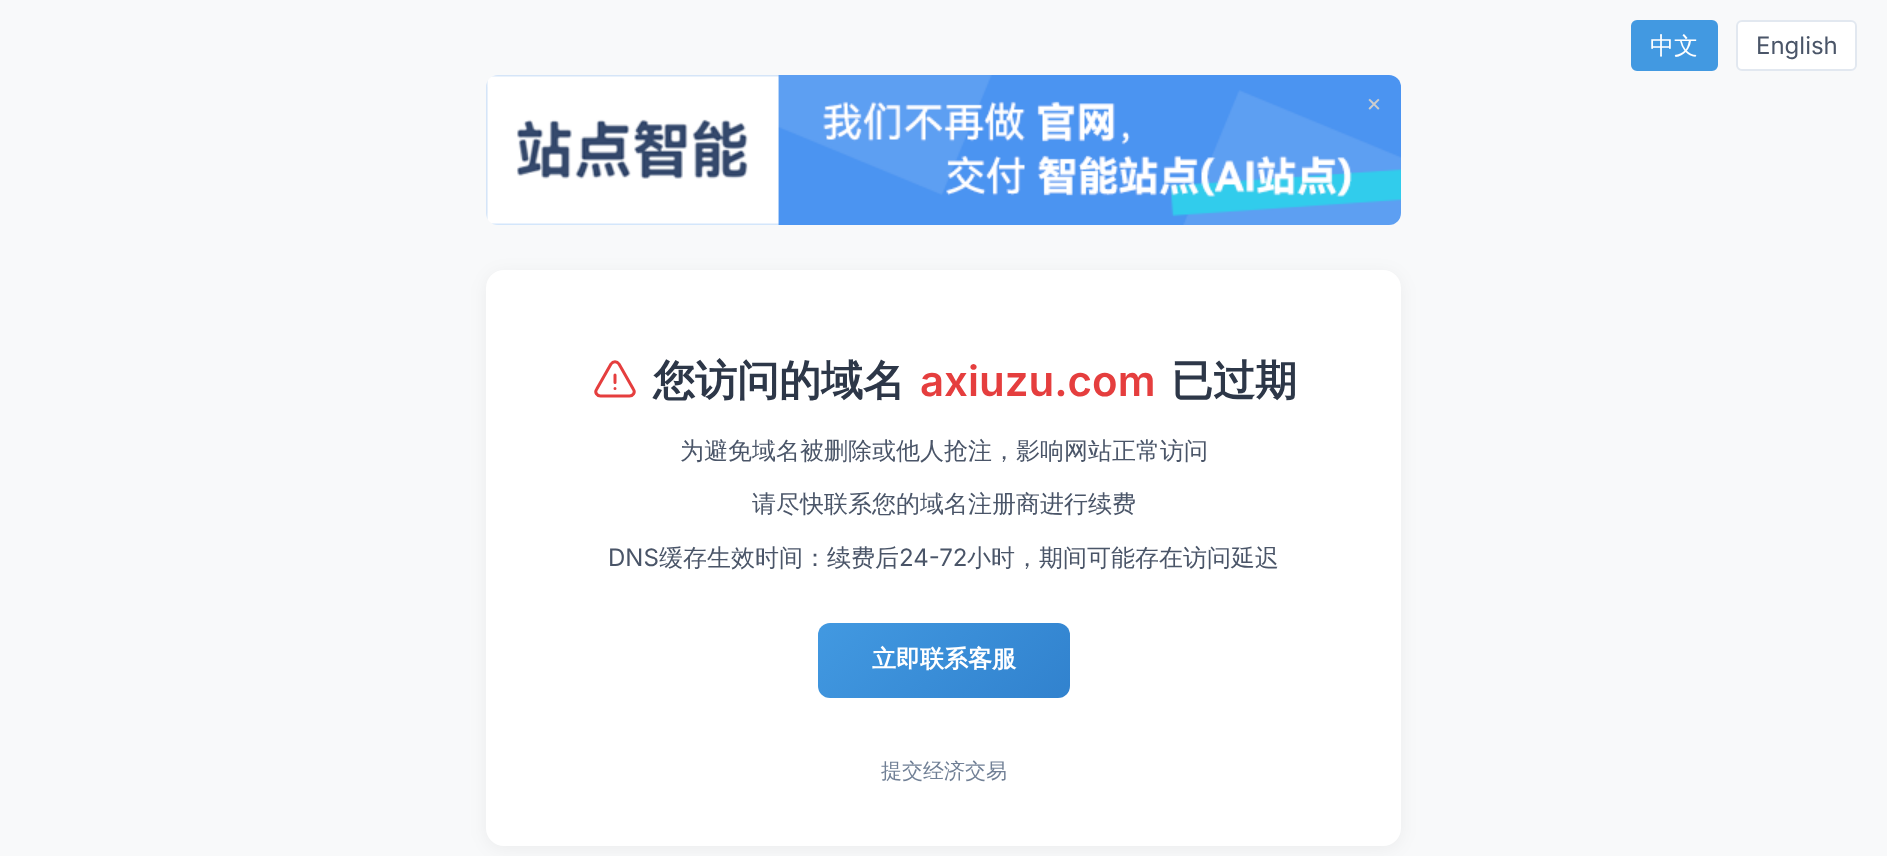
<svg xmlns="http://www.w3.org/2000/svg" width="1887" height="856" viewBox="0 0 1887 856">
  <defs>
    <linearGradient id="g1" gradientUnits="userSpaceOnUse" x1="862" y1="578" x2="1025" y2="742"><stop offset="0" stop-color="#4299e1"/><stop offset="1" stop-color="#3182ce"/></linearGradient>
  </defs>
  <rect width="100%" height="100%" fill="#f8f9fa"/>
  <rect x="1632" y="21" width="85" height="49" rx="5" fill="#4299e1" stroke="#4299e1" stroke-width="2"/>
  <rect x="1737" y="21" width="119" height="49" rx="5" fill="#fff" stroke="#e2e8f0" stroke-width="2"/>
  <image x="486" y="75" width="915" height="150" href="img/1.png"/>
  <rect x="486" y="273" width="915" height="576" rx="18" fill="#0000000d" filter="blur(9px)"/>
  <rect x="486" y="270" width="915" height="576" rx="18" fill="#fff"/>
  <path d="M615 375V382.5M596.5 389.5C594.5 392.5 597 396 600.5 396H629.5C633 396 635.5 392.5 633.5 389.5L619 364C617 361 613 361 611 364ZM615 388.5H615Z" fill="none" stroke="#e53e3e" stroke-width="3" stroke-linecap="round" stroke-linejoin="round"/>
  <rect x="818" y="623" width="252" height="75" rx="12" fill="url(#g1)"/>
  <text x="1650" y="54" font-family="WenQuanYi Zen Hei" font-size="24" font-weight="500" fill="#fff">中文</text>
  <text x="1756" y="54" font-family="Inter" font-size="24" fill="#4a5568">English</text>
  <text x="1366" y="111" font-family="Inter" font-size="24" fill="#ccc">×</text>
  <text x="653" y="395" font-family="WenQuanYi Zen Hei" font-size="42" font-weight="bold" fill="#2d3748">您访问的域名</text>
  <text x="920" y="396" font-family="Inter" font-size="42" font-weight="600" fill="#e53e3e">axiuzu.com</text>
  <text x="1171" y="395" font-family="WenQuanYi Zen Hei" font-size="42" font-weight="bold" fill="#2d3748">已过期</text>
  <g font-family="WenQuanYi Zen Hei" font-size="24" font-weight="500" fill="#4a5568">
    <text x="680" y="459">为避免域名被删除或他人抢注，影响网站正常访问</text>
    <text x="752" y="512">请尽快联系您的域名注册商进行续费</text>
  </g>
  <text x="608" y="566" font-family="Inter" font-size="24" fill="#4a5568">DNS</text>
  <text x="659" y="566" font-family="WenQuanYi Zen Hei" font-size="24" font-weight="500" fill="#4a5568">缓存生效时间：续费后</text>
  <text x="899" y="566" font-family="Inter" font-size="24" fill="#4a5568">24-72</text>
  <text x="967" y="566" font-family="WenQuanYi Zen Hei" font-size="24" font-weight="500" fill="#4a5568">小时，期间可能存在访问延迟</text>
  <text x="872" y="667" font-family="WenQuanYi Zen Hei" font-size="24" font-weight="bold" fill="#fff">立即联系客服</text>
  <text x="881" y="778" font-family="WenQuanYi Zen Hei" font-size="21" font-weight="500" fill="#718096">提交经济交易</text>
</svg>
